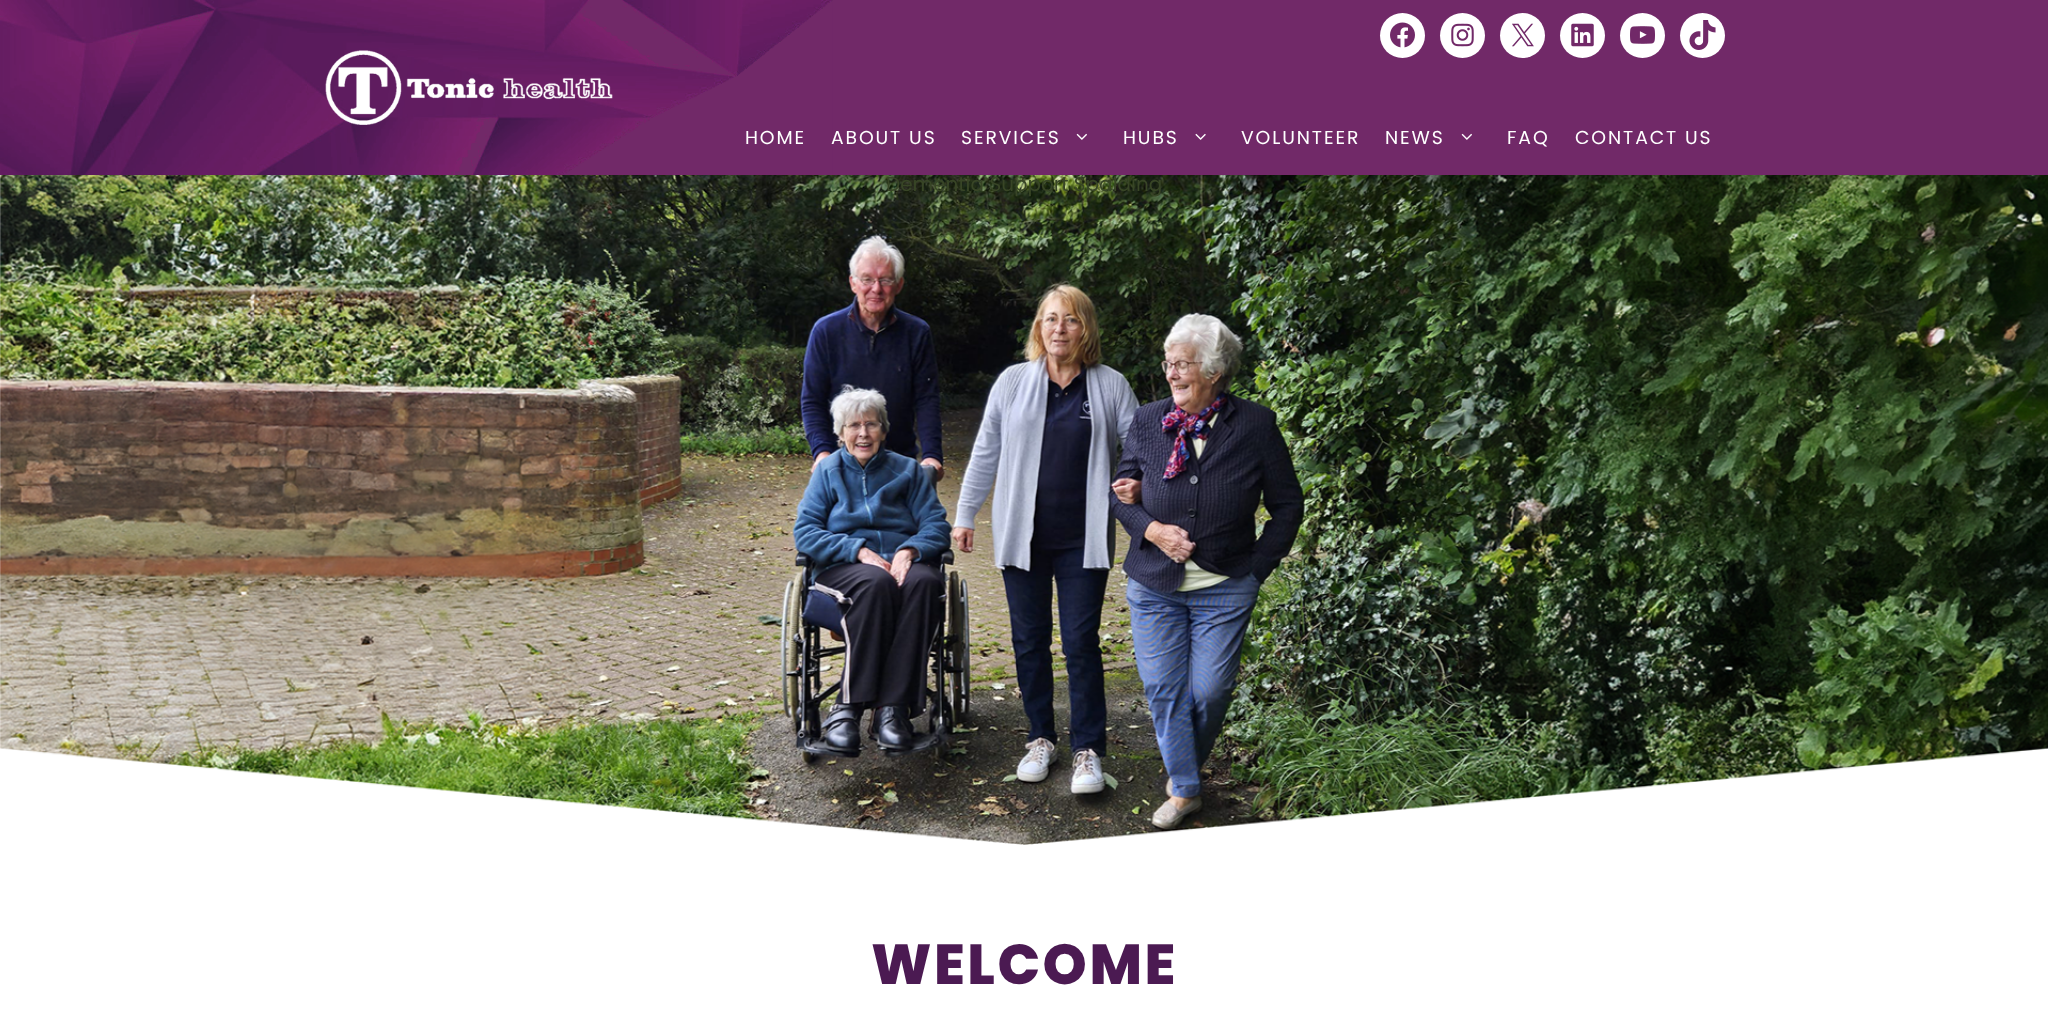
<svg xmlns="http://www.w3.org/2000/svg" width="2048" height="1011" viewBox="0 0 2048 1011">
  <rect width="100%" height="100%" fill="#fff"/>
  <path d="M832 0h1216v175H832z" fill="#712968"/>
  <circle cx="1402.5" cy="35.5" r="22.5" fill="#fff"/>
  <image x="1390" y="22" width="25" height="26" href="img/1.png"/>
  <circle cx="1462.5" cy="35.5" r="22.5" fill="#fff"/>
  <image x="1451" y="23" width="23" height="24" href="img/2.png"/>
  <circle cx="1522.5" cy="35.5" r="22.5" fill="#fff"/>
  <image x="1512" y="23" width="22" height="24" href="img/3.png"/>
  <circle cx="1582.5" cy="35.5" r="22.5" fill="#fff"/>
  <image x="1571" y="23" width="23" height="24" href="img/4.png"/>
  <circle cx="1642.5" cy="35.5" r="22.5" fill="#fff"/>
  <image x="1630" y="26" width="25" height="18" href="img/5.png"/>
  <circle cx="1702.5" cy="35.5" r="22.5" fill="#fff"/>
  <image x="1689" y="20" width="27" height="30" href="img/6.png"/>
  <image x="0" y="0" width="833" height="175" href="img/7.png"/>
  <image x="325" y="50" width="288" height="75" href="img/8.png"/>
  <image x="1076" y="133" width="11" height="7" href="img/9.png"/>
  <image x="1195" y="133" width="11" height="7" href="img/10.png"/>
  <image x="1461" y="133" width="11" height="7" href="img/9.png"/>
  <image x="0" y="175" width="2048" height="670" href="img/11.png"/>
  <g font-family="Poppins" font-size="18.75" letter-spacing="1.9" fill="#fff">
    <text x="745" y="144">HOME</text>
    <text x="831" y="144">ABOUT US</text>
    <text x="961" y="144">SERVICES</text>
    <text x="1123" y="144">HUBS</text>
    <text x="1241" y="144">VOLUNTEER</text>
    <text x="1385" y="144">NEWS</text>
    <text x="1507" y="144">FAQ</text>
    <text x="1575" y="144">CONTACT US</text>
  </g>
  <text x="886" y="191" font-family="Poppins" font-size="20" fill="#384526">Dementia Support Spalding</text>
  <text x="871" y="984" font-family="Poppins" font-size="56.25" font-weight="800" letter-spacing="2.5" fill="#4b1a52">WELCOME</text>
</svg>
